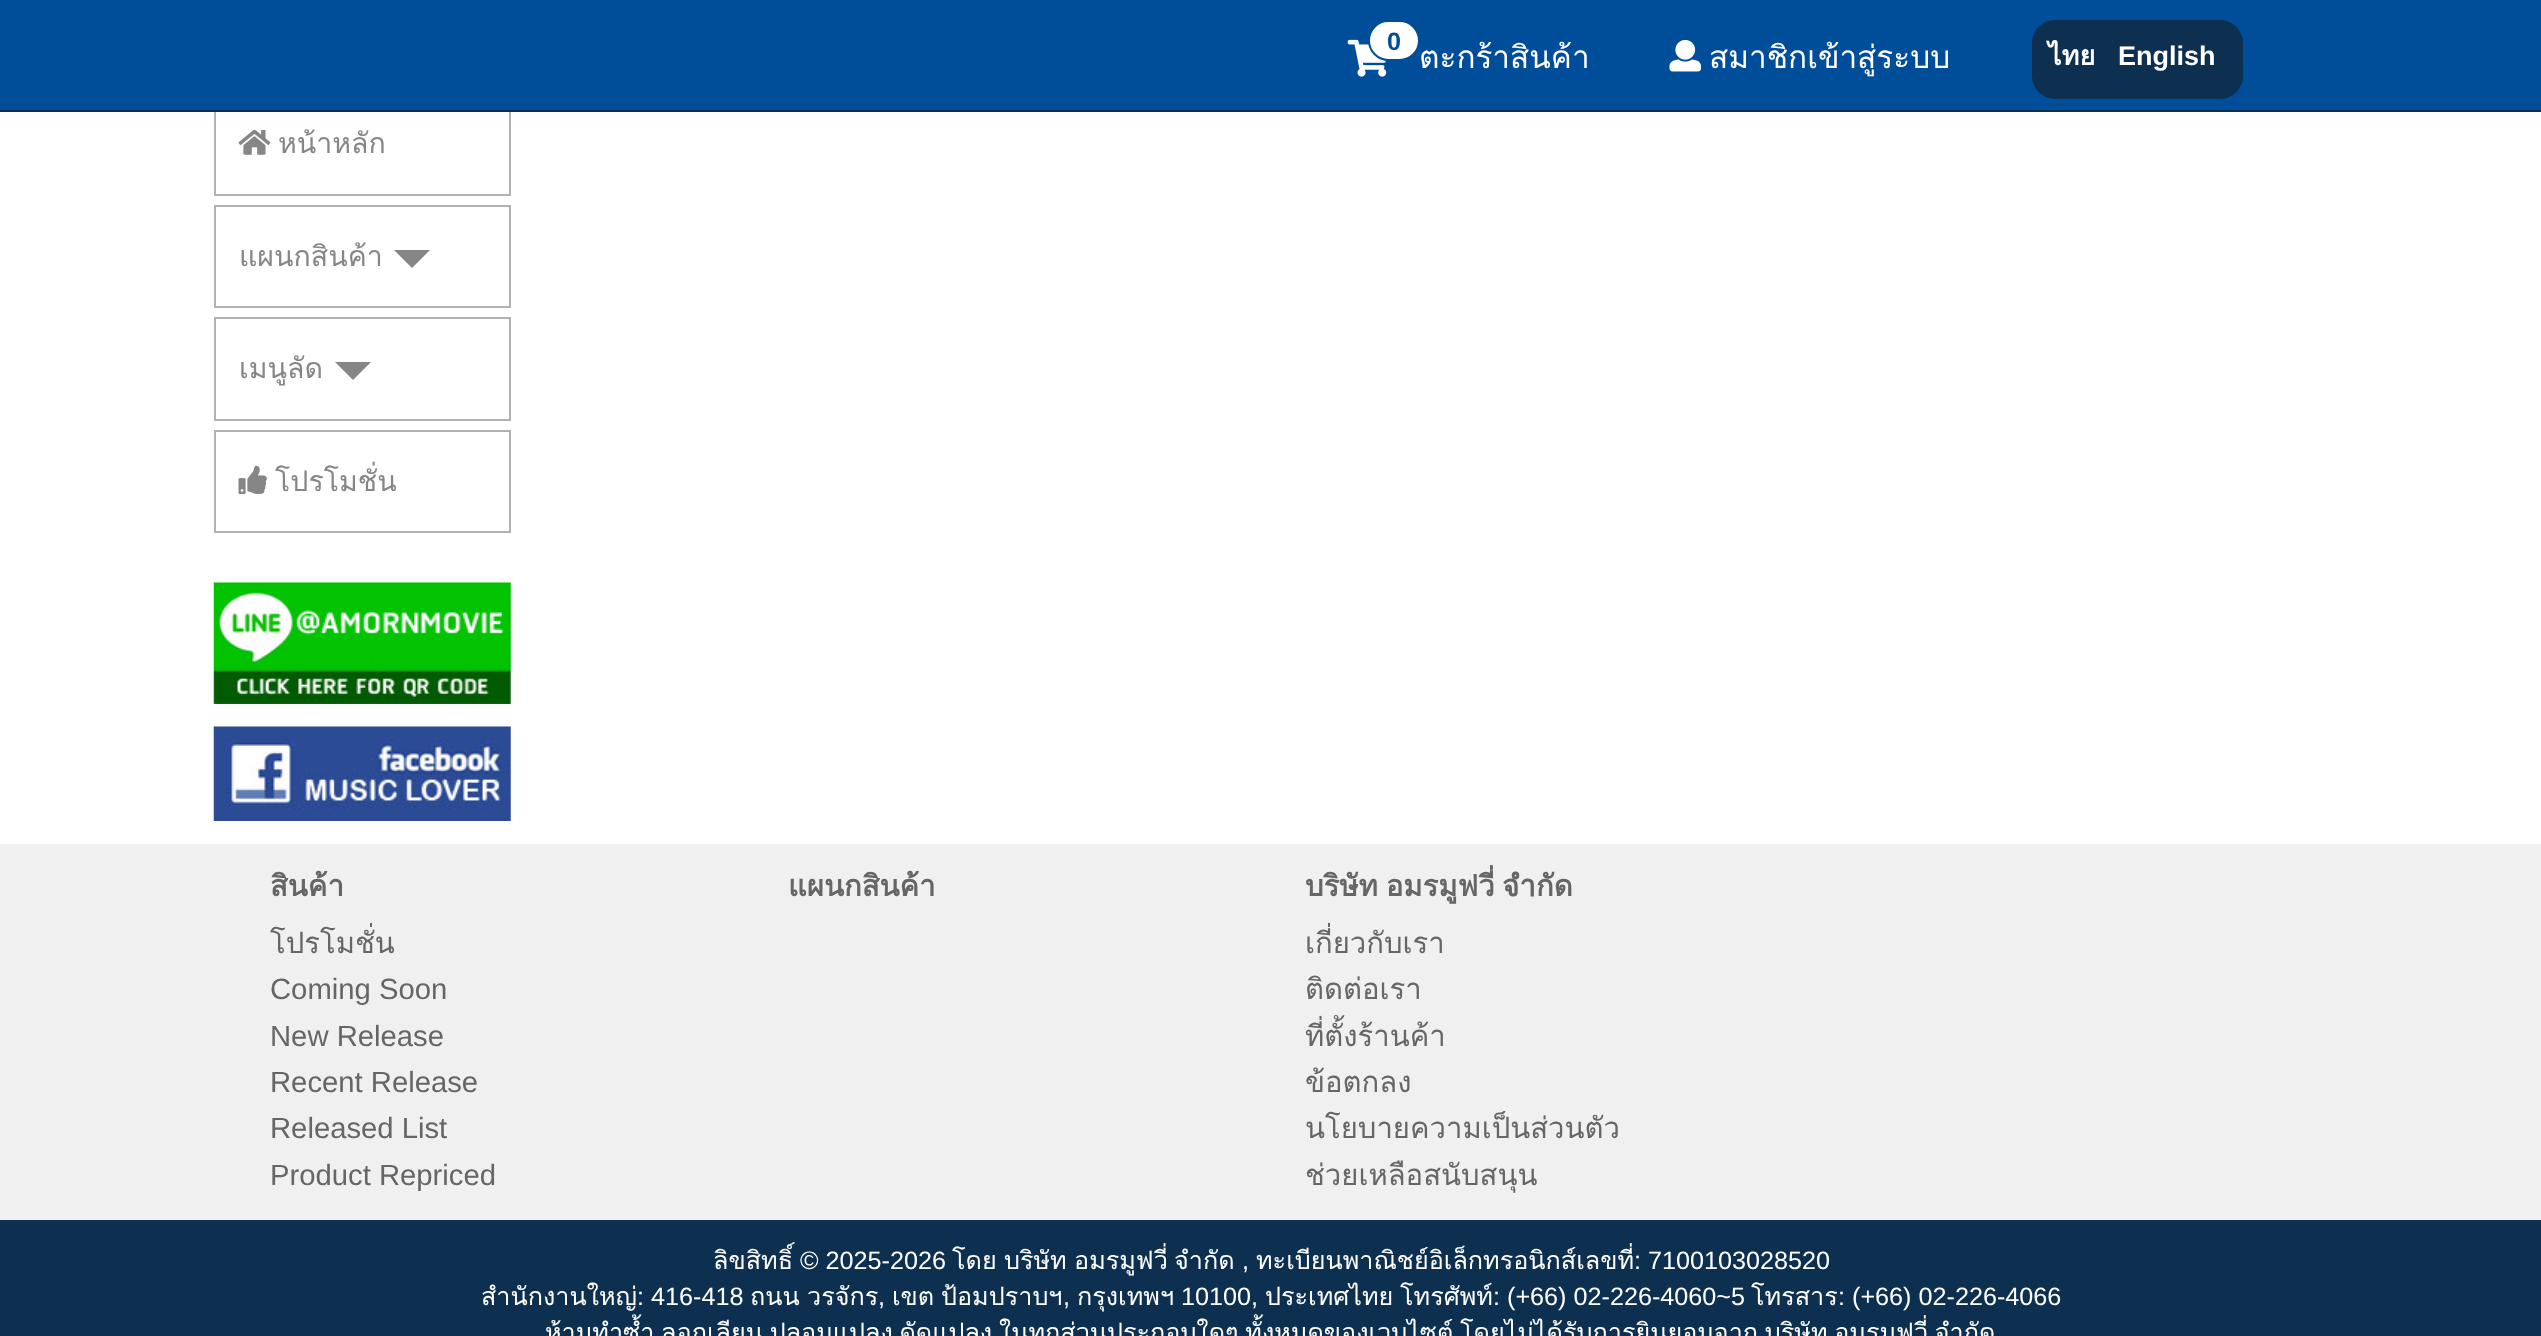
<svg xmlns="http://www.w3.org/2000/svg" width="2541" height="1336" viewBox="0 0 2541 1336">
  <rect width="100%" height="100%" fill="#fff"/>
  <path d="M215 93h295v102H215z" fill="none" stroke="#b1b1b1" stroke-width="2"/>
  <path d="M0 0h2541v110H0z" fill="#004d99"/>
  <path d="M0 110h2541v2H0z" fill="#0d2f50"/>
  <image x="1347" y="39" width="40" height="38" href="img/1.png"/>
  <rect x="1369" y="21" width="50" height="39" rx="19.5" fill="#fff" stroke="#004d99" stroke-width="2"/>
  <image x="1669" y="39" width="32" height="33" href="img/2.png"/>
  <rect x="2032" y="20" width="211" height="79" rx="23" fill="#0d2f50"/>
  <image x="238" y="129" width="33" height="26" href="img/3.png"/>
  <path d="M215 206h295v101H215z" fill="none" stroke="#b1b1b1" stroke-width="2"/>
  <path d="M394 250H430L412 268Z" fill="#868686"/>
  <path d="M215 318h295v102H215z" fill="none" stroke="#b1b1b1" stroke-width="2"/>
  <path d="M335 362H371L353 380Z" fill="#868686"/>
  <path d="M215 431h295v101H215z" fill="none" stroke="#b1b1b1" stroke-width="2"/>
  <image x="238" y="465" width="29" height="30" href="img/4.png"/>
  <image x="213" y="582" width="298" height="122" href="img/5.png"/>
  <image x="213" y="726" width="298" height="95" href="img/6.png"/>
  <path d="M0 1220h2541v116H0z" fill="#0d2f50"/>
  <path d="M0 844h2541v376H0z" fill="#f0f0f0"/>
  <text x="1387" y="50" font-family="Liberation Sans" font-size="25.2" font-weight="bold" fill="#004d99">0</text>
  <g font-family="Loma" font-size="31.5" fill="#fff">
    <text x="1419" y="68">ตะกร้าสินค้า</text>
    <text x="1709" y="68">สมาชิกเข้าสู่ระบบ</text>
  </g>
  <text x="2048" y="65" font-family="Loma" font-size="27" font-weight="bold" fill="#fff">ไทย</text>
  <text x="2118" y="65" font-family="Liberation Sans" font-size="27" font-weight="bold" fill="#fff">English</text>
  <g font-family="Loma" font-size="28.5" fill="#868686">
    <text x="278" y="153">หน้าหลัก</text>
    <text x="239" y="266">แผนกสินค้า</text>
    <text x="239" y="378">เมนูลัด</text>
    <text x="275" y="491">โปรโมชั่น</text>
  </g>
  <text x="270" y="896" font-family="Loma" font-size="29.25" font-weight="bold" fill="#666">สินค้า</text>
  <text x="270" y="953" font-family="Loma" font-size="29.25" fill="#666">โปรโมชั่น</text>
  <g font-family="Liberation Sans" font-size="29.25" fill="#666">
    <text x="270" y="999">Coming Soon</text>
    <text x="270" y="1046">New Release</text>
    <text x="270" y="1092">Recent Release</text>
    <text x="270" y="1138">Released List</text>
    <text x="270" y="1185">Product Repriced</text>
  </g>
  <g font-family="Loma" font-size="29.25" font-weight="bold" fill="#666">
    <text x="788" y="896">แผนกสินค้า</text>
    <text x="1305" y="896" word-spacing="-2">บริษัท อมรมูฟวี่ จำกัด</text>
  </g>
  <g font-family="Loma" font-size="29.25" fill="#666">
    <text x="1305" y="953">เกี่ยวกับเรา</text>
    <text x="1305" y="999">ติดต่อเรา</text>
    <text x="1305" y="1046">ที่ตั้งร้านค้า</text>
    <text x="1305" y="1092">ข้อตกลง</text>
    <text x="1305" y="1138">นโยบายความเป็นส่วนตัว</text>
    <text x="1305" y="1185">ช่วยเหลือสนับสนุน</text>
  </g>
  <text x="713" y="1269" font-family="Loma" font-size="25.2" fill="#fff">ลิขสิทธิ์</text>
  <text x="800" y="1269" font-family="Liberation Sans" font-size="25.2" fill="#fff">© 2025-2026</text>
  <g font-family="Loma" font-size="25.2" fill="#fff">
    <text x="952" y="1269">โดย</text>
    <text x="1004" y="1269">บริษัท</text>
    <text x="1074" y="1269">อมรมูฟวี่</text>
    <text x="1174" y="1269">จำกัด</text>
  </g>
  <text x="1242" y="1269" font-family="Liberation Sans" font-size="25.2" fill="#fff">,</text>
  <text x="1256" y="1269" font-family="Loma" font-size="25.2" fill="#fff">ทะเบียนพาณิชย์อิเล็กทรอนิกส์เลขที่</text>
  <text x="1634" y="1269" font-family="Liberation Sans" font-size="25.2" fill="#fff">: 7100103028520</text>
  <text x="481" y="1305" font-family="Loma" font-size="25.2" fill="#fff">สำนักงานใหญ่</text>
  <text x="637" y="1305" font-family="Liberation Sans" font-size="25.2" fill="#fff">: 416-418</text>
  <g font-family="Loma" font-size="25.2" fill="#fff">
    <text x="750" y="1305">ถนน</text>
    <text x="807" y="1305">วรจักร</text>
  </g>
  <text x="878" y="1305" font-family="Liberation Sans" font-size="25.2" fill="#fff">,</text>
  <g font-family="Loma" font-size="25.2" fill="#fff">
    <text x="892" y="1305">เขต</text>
    <text x="941" y="1305">ป้อมปราบฯ</text>
  </g>
  <text x="1063" y="1305" font-family="Liberation Sans" font-size="25.2" fill="#fff">,</text>
  <text x="1077" y="1305" font-family="Loma" font-size="25.2" fill="#fff">กรุงเทพฯ</text>
  <text x="1181" y="1305" font-family="Liberation Sans" font-size="25.2" fill="#fff">10100,</text>
  <g font-family="Loma" font-size="25.2" fill="#fff">
    <text x="1265" y="1305">ประเทศไทย</text>
    <text x="1400" y="1305">โทรศัพท์</text>
  </g>
  <text x="1493" y="1305" font-family="Liberation Sans" font-size="25.2" fill="#fff">: (+66) 02-226-4060~5</text>
  <text x="1751" y="1305" font-family="Loma" font-size="25.2" fill="#fff">โทรสาร</text>
  <text x="1838" y="1305" font-family="Liberation Sans" font-size="25.2" fill="#fff">: (+66) 02-226-4066</text>
  <text x="545" y="1341" word-spacing="-1.75" font-family="Loma" font-size="25.2" fill="#fff">ห้ามทำซ้ำ ลอกเลียน ปลอมแปลง ดัดแปลง ในทุกส่วนประกอบใดๆ ทั้งหมดของเวบไซต์ โดยไม่ได้รับการยินยอมจาก บริษัท อมรมูฟวี่ จำกัด</text>
</svg>
